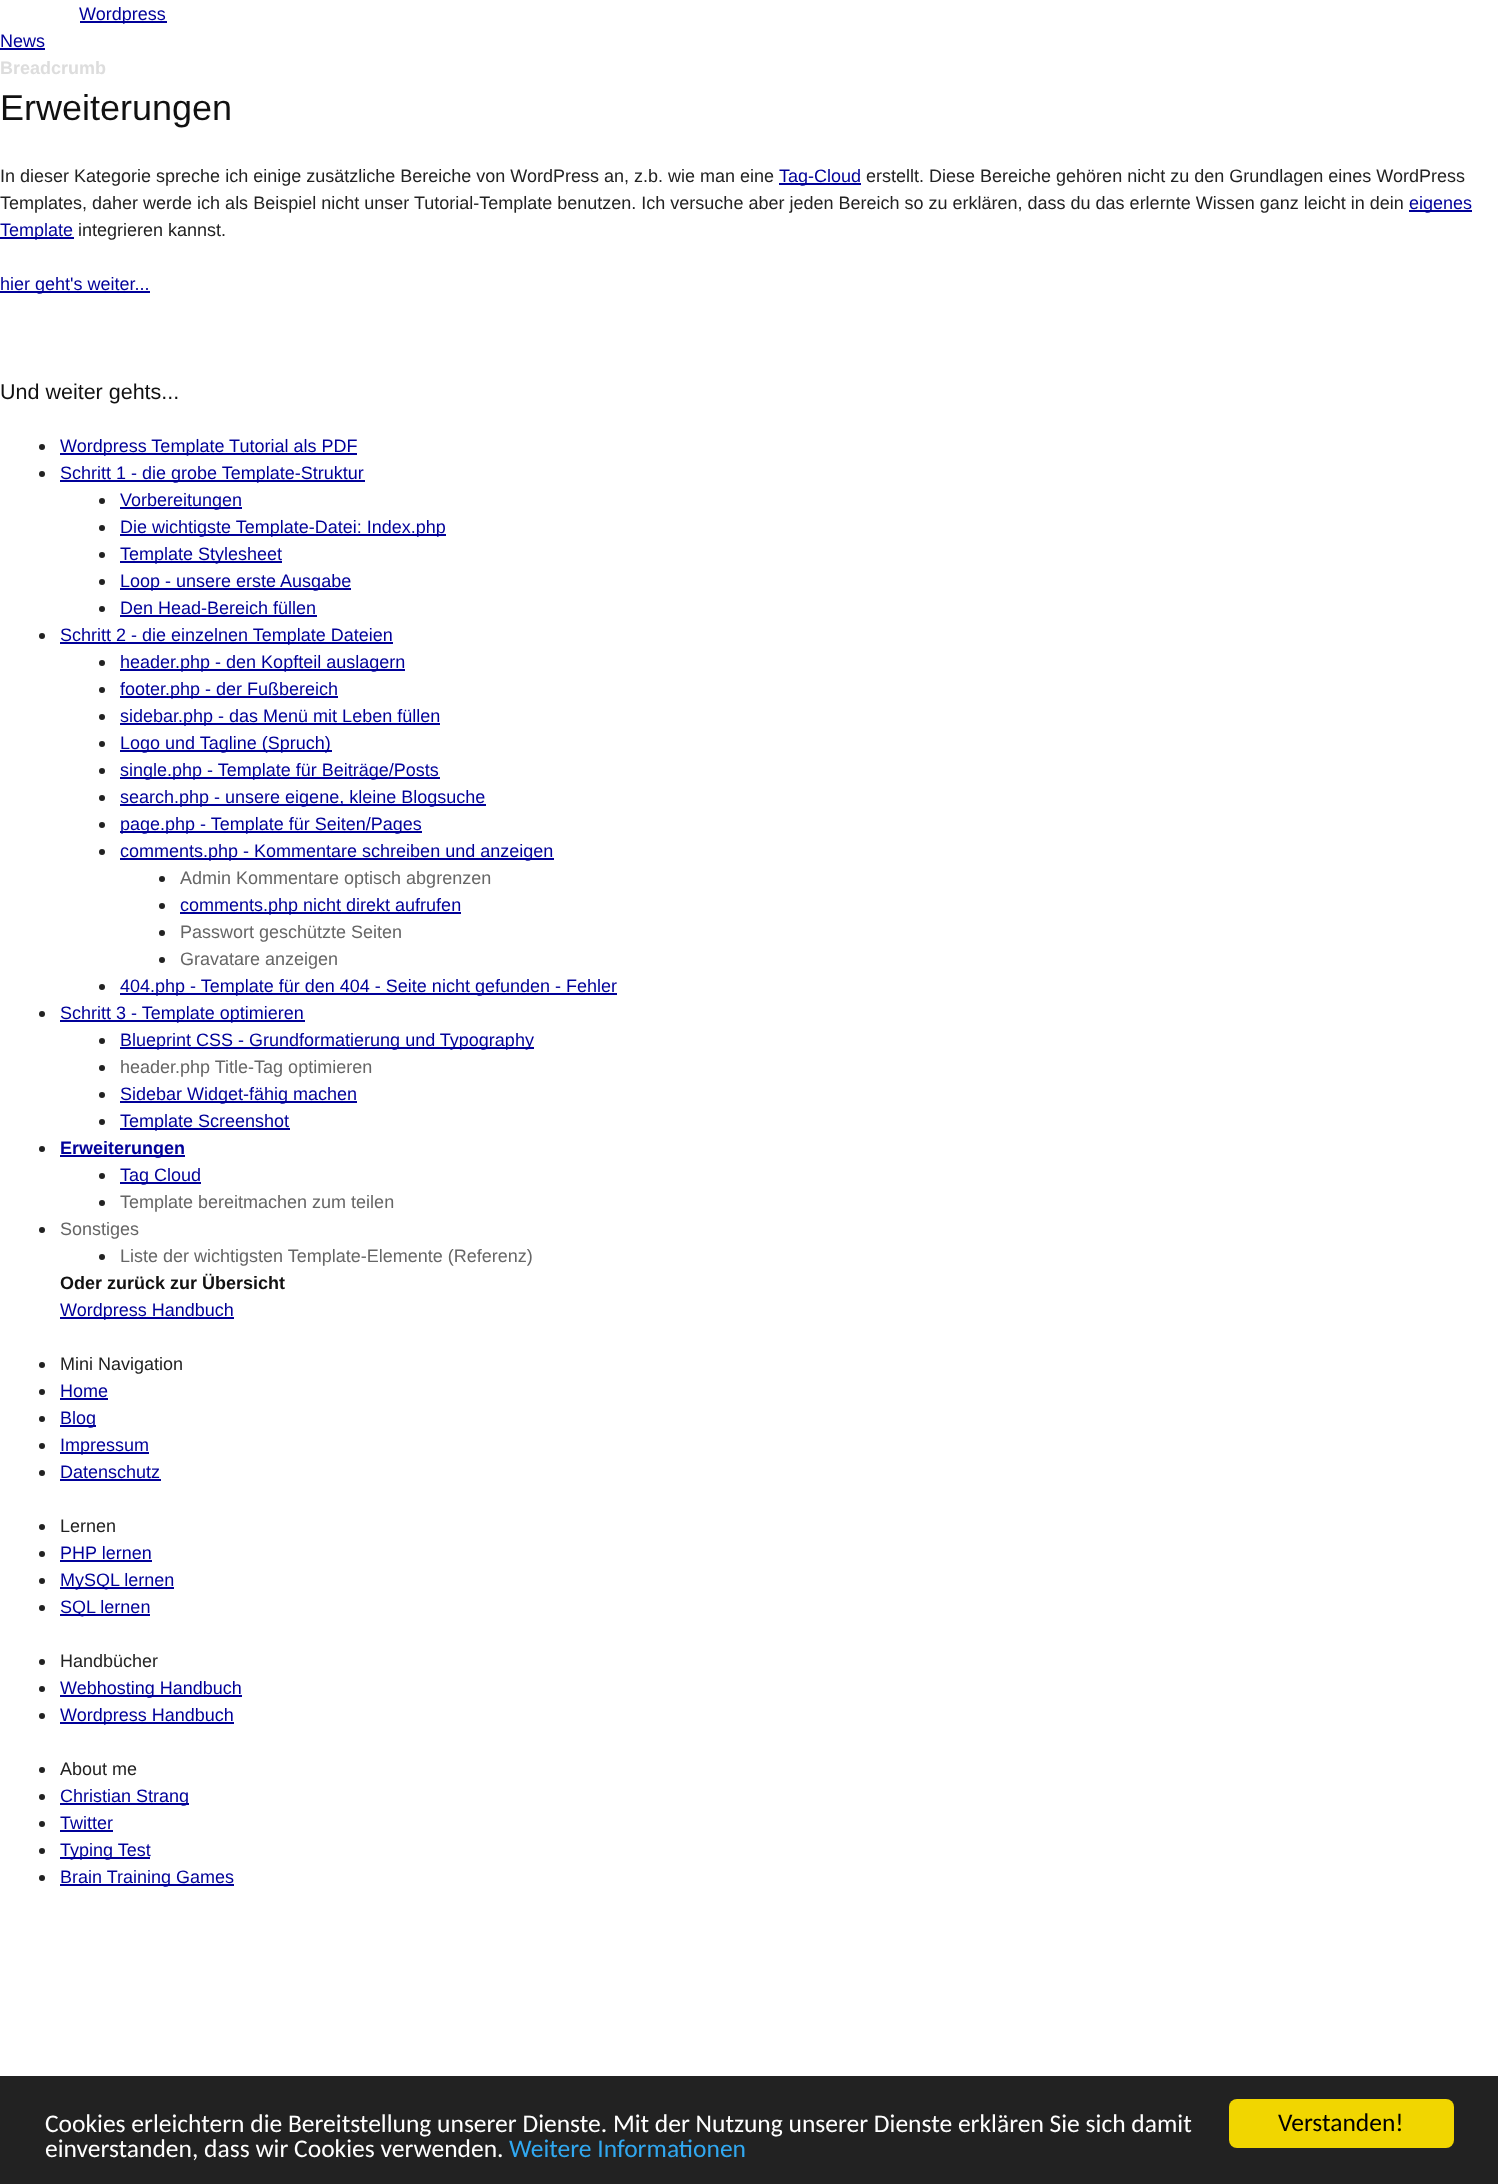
<svg xmlns="http://www.w3.org/2000/svg" width="1498" height="2184" viewBox="0 0 1498 2184">
  <rect width="100%" height="100%" fill="#fff"/>
  <path d="M80 21h87v2H80z" fill="#009"/>
  <path d="M0 48h45v2H0z" fill="#009"/>
  <path d="M779 183h82v2H779z" fill="#009"/>
  <path d="M1409 210h63v2H1409z" fill="#009"/>
  <path d="M0 237h74v2H0z" fill="#009"/>
  <path d="M0 291h150v2H0z" fill="#009"/>
  <circle cx="42" cy="447" r="3" fill="#222"/>
  <path d="M60 453h297v2H60z" fill="#009"/>
  <circle cx="42" cy="474" r="3" fill="#222"/>
  <path d="M60 480h305v2H60z" fill="#009"/>
  <circle cx="102" cy="501" r="3" fill="#222"/>
  <path d="M120 507h122v2H120z" fill="#009"/>
  <circle cx="102" cy="528" r="3" fill="#222"/>
  <path d="M120 534h326v2H120z" fill="#009"/>
  <circle cx="102" cy="555" r="3" fill="#222"/>
  <path d="M120 561h162v2H120z" fill="#009"/>
  <circle cx="102" cy="582" r="3" fill="#222"/>
  <path d="M120 588h231v2H120z" fill="#009"/>
  <circle cx="102" cy="609" r="3" fill="#222"/>
  <path d="M120 615h197v2H120z" fill="#009"/>
  <circle cx="42" cy="636" r="3" fill="#222"/>
  <path d="M60 642h333v2H60z" fill="#009"/>
  <circle cx="102" cy="663" r="3" fill="#222"/>
  <path d="M120 669h285v2H120z" fill="#009"/>
  <circle cx="102" cy="690" r="3" fill="#222"/>
  <path d="M120 696h218v2H120z" fill="#009"/>
  <circle cx="102" cy="717" r="3" fill="#222"/>
  <path d="M120 723h320v2H120z" fill="#009"/>
  <circle cx="102" cy="744" r="3" fill="#222"/>
  <path d="M120 750h212v2H120z" fill="#009"/>
  <circle cx="102" cy="771" r="3" fill="#222"/>
  <path d="M120 777h320v2H120z" fill="#009"/>
  <circle cx="102" cy="798" r="3" fill="#222"/>
  <path d="M120 804h366v2H120z" fill="#009"/>
  <circle cx="102" cy="825" r="3" fill="#222"/>
  <path d="M120 831h302v2H120z" fill="#009"/>
  <circle cx="102" cy="852" r="3" fill="#222"/>
  <path d="M120 858h434v2H120z" fill="#009"/>
  <circle cx="162" cy="879" r="3" fill="#222"/>
  <circle cx="162" cy="906" r="3" fill="#222"/>
  <path d="M180 912h281v2H180z" fill="#009"/>
  <circle cx="162" cy="933" r="3" fill="#222"/>
  <circle cx="162" cy="960" r="3" fill="#222"/>
  <circle cx="102" cy="987" r="3" fill="#222"/>
  <path d="M120 993h497v2H120z" fill="#009"/>
  <circle cx="42" cy="1014" r="3" fill="#222"/>
  <path d="M60 1020h245v2H60z" fill="#009"/>
  <circle cx="102" cy="1041" r="3" fill="#222"/>
  <path d="M120 1047h414v2H120z" fill="#009"/>
  <circle cx="102" cy="1068" r="3" fill="#222"/>
  <circle cx="102" cy="1095" r="3" fill="#222"/>
  <path d="M120 1101h237v2H120z" fill="#009"/>
  <circle cx="102" cy="1122" r="3" fill="#222"/>
  <path d="M120 1128h170v2H120z" fill="#009"/>
  <circle cx="42" cy="1149" r="3" fill="#222"/>
  <path d="M60 1155h125v2H60z" fill="#009"/>
  <circle cx="102" cy="1176" r="3" fill="#222"/>
  <path d="M120 1182h81v2H120z" fill="#009"/>
  <circle cx="102" cy="1203" r="3" fill="#222"/>
  <circle cx="42" cy="1230" r="3" fill="#222"/>
  <circle cx="102" cy="1257" r="3" fill="#222"/>
  <path d="M60 1317h174v2H60z" fill="#009"/>
  <circle cx="42" cy="1365" r="3" fill="#222"/>
  <circle cx="42" cy="1392" r="3" fill="#222"/>
  <path d="M60 1398h48v2H60z" fill="#009"/>
  <circle cx="42" cy="1419" r="3" fill="#222"/>
  <path d="M60 1425h36v2H60z" fill="#009"/>
  <circle cx="42" cy="1446" r="3" fill="#222"/>
  <path d="M60 1452h89v2H60z" fill="#009"/>
  <circle cx="42" cy="1473" r="3" fill="#222"/>
  <path d="M60 1479h101v2H60z" fill="#009"/>
  <circle cx="42" cy="1527" r="3" fill="#222"/>
  <circle cx="42" cy="1554" r="3" fill="#222"/>
  <path d="M60 1560h92v2H60z" fill="#009"/>
  <circle cx="42" cy="1581" r="3" fill="#222"/>
  <path d="M60 1587h114v2H60z" fill="#009"/>
  <circle cx="42" cy="1608" r="3" fill="#222"/>
  <path d="M60 1614h90v2H60z" fill="#009"/>
  <circle cx="42" cy="1662" r="3" fill="#222"/>
  <circle cx="42" cy="1689" r="3" fill="#222"/>
  <path d="M60 1695h182v2H60z" fill="#009"/>
  <circle cx="42" cy="1716" r="3" fill="#222"/>
  <path d="M60 1722h174v2H60z" fill="#009"/>
  <circle cx="42" cy="1770" r="3" fill="#222"/>
  <circle cx="42" cy="1797" r="3" fill="#222"/>
  <path d="M60 1803h129v2H60z" fill="#009"/>
  <circle cx="42" cy="1824" r="3" fill="#222"/>
  <path d="M60 1830h53v2H60z" fill="#009"/>
  <circle cx="42" cy="1851" r="3" fill="#222"/>
  <path d="M60 1857h90v2H60z" fill="#009"/>
  <circle cx="42" cy="1878" r="3" fill="#222"/>
  <path d="M60 1884h174v2H60z" fill="#009"/>
  <path d="M0 2076h1498v108H0z" fill="#222"/>
  <rect x="1229" y="2099" width="225" height="49" rx="8" fill="#f1d600"/>
  <g font-family="Liberation Sans" font-size="18" fill="#009">
    <text x="79" y="20">Wordpress</text>
    <text x="0" y="47">News</text>
  </g>
  <text x="0" y="74" font-family="Liberation Sans" font-size="18" font-weight="bold" fill="#ddd">Breadcrumb</text>
  <text x="0" y="120" font-family="Liberation Sans" font-size="36" fill="#111">Erweiterungen</text>
  <text x="0" y="182" font-family="Liberation Sans" font-size="18" fill="#222">In dieser Kategorie spreche ich einige zusätzliche Bereiche von WordPress an, z.b. wie man eine</text>
  <text x="779" y="182" font-family="Liberation Sans" font-size="18" fill="#009">Tag-Cloud</text>
  <g font-family="Liberation Sans" font-size="18" fill="#222">
    <text x="866" y="182">erstellt. Diese Bereiche gehören nicht zu den Grundlagen eines WordPress</text>
    <text x="0" y="209">Templates, daher werde ich als Beispiel nicht unser Tutorial-Template benutzen. Ich versuche aber jeden Bereich so zu erklären, dass du das erlernte Wissen ganz leicht in dein</text>
  </g>
  <g font-family="Liberation Sans" font-size="18" fill="#009">
    <text x="1409" y="209">eigenes</text>
    <text x="0" y="236">Template</text>
  </g>
  <text x="78" y="236" font-family="Liberation Sans" font-size="18" fill="#222">integrieren kannst.</text>
  <text x="0" y="290" font-family="Liberation Sans" font-size="18" fill="#009">hier geht's weiter...</text>
  <text x="0" y="399" font-family="Liberation Sans" font-size="21.5" fill="#111">Und weiter gehts...</text>
  <g font-family="Liberation Sans" font-size="18" fill="#009">
    <text x="60" y="452">Wordpress Template Tutorial als PDF</text>
    <text x="60" y="479">Schritt 1 - die grobe Template-Struktur</text>
    <text x="120" y="506">Vorbereitungen</text>
    <text x="120" y="533">Die wichtigste Template-Datei: Index.php</text>
    <text x="120" y="560">Template Stylesheet</text>
    <text x="120" y="587">Loop - unsere erste Ausgabe</text>
    <text x="120" y="614">Den Head-Bereich füllen</text>
    <text x="60" y="641">Schritt 2 - die einzelnen Template Dateien</text>
    <text x="120" y="668">header.php - den Kopfteil auslagern</text>
    <text x="120" y="695">footer.php - der Fußbereich</text>
    <text x="120" y="722">sidebar.php - das Menü mit Leben füllen</text>
    <text x="120" y="749">Logo und Tagline (Spruch)</text>
    <text x="120" y="776">single.php - Template für Beiträge/Posts</text>
    <text x="120" y="803">search.php - unsere eigene, kleine Blogsuche</text>
    <text x="120" y="830">page.php - Template für Seiten/Pages</text>
    <text x="120" y="857">comments.php - Kommentare schreiben und anzeigen</text>
  </g>
  <text x="180" y="884" font-family="Liberation Sans" font-size="18" fill="#666">Admin Kommentare optisch abgrenzen</text>
  <text x="180" y="911" font-family="Liberation Sans" font-size="18" fill="#009">comments.php nicht direkt aufrufen</text>
  <g font-family="Liberation Sans" font-size="18" fill="#666">
    <text x="180" y="938">Passwort geschützte Seiten</text>
    <text x="180" y="965">Gravatare anzeigen</text>
  </g>
  <g font-family="Liberation Sans" font-size="18" fill="#009">
    <text x="120" y="992">404.php - Template für den 404 - Seite nicht gefunden - Fehler</text>
    <text x="60" y="1019">Schritt 3 - Template optimieren</text>
    <text x="120" y="1046">Blueprint CSS - Grundformatierung und Typography</text>
  </g>
  <text x="120" y="1073" font-family="Liberation Sans" font-size="18" fill="#666">header.php Title-Tag optimieren</text>
  <g font-family="Liberation Sans" font-size="18" fill="#009">
    <text x="120" y="1100">Sidebar Widget-fähig machen</text>
    <text x="120" y="1127">Template Screenshot</text>
  </g>
  <text x="60" y="1154" font-family="Liberation Sans" font-size="18" font-weight="bold" fill="#009">Erweiterungen</text>
  <text x="120" y="1181" font-family="Liberation Sans" font-size="18" fill="#009">Tag Cloud</text>
  <g font-family="Liberation Sans" font-size="18" fill="#666">
    <text x="120" y="1208">Template bereitmachen zum teilen</text>
    <text x="60" y="1235">Sonstiges</text>
    <text x="120" y="1262">Liste der wichtigsten Template-Elemente (Referenz)</text>
  </g>
  <text x="60" y="1289" font-family="Liberation Sans" font-size="18" font-weight="bold" fill="#111">Oder zurück zur Übersicht</text>
  <text x="60" y="1316" font-family="Liberation Sans" font-size="18" fill="#009">Wordpress Handbuch</text>
  <text x="60" y="1370" font-family="Liberation Sans" font-size="18" fill="#222">Mini Navigation</text>
  <g font-family="Liberation Sans" font-size="18" fill="#009">
    <text x="60" y="1397">Home</text>
    <text x="60" y="1424">Blog</text>
    <text x="60" y="1451">Impressum</text>
    <text x="60" y="1478">Datenschutz</text>
  </g>
  <text x="60" y="1532" font-family="Liberation Sans" font-size="18" fill="#222">Lernen</text>
  <g font-family="Liberation Sans" font-size="18" fill="#009">
    <text x="60" y="1559">PHP lernen</text>
    <text x="60" y="1586">MySQL lernen</text>
    <text x="60" y="1613">SQL lernen</text>
  </g>
  <text x="60" y="1667" font-family="Liberation Sans" font-size="18" fill="#222">Handbücher</text>
  <g font-family="Liberation Sans" font-size="18" fill="#009">
    <text x="60" y="1694">Webhosting Handbuch</text>
    <text x="60" y="1721">Wordpress Handbuch</text>
  </g>
  <text x="60" y="1775" font-family="Liberation Sans" font-size="18" fill="#222">About me</text>
  <g font-family="Liberation Sans" font-size="18" fill="#009">
    <text x="60" y="1802">Christian Strang</text>
    <text x="60" y="1829">Twitter</text>
    <text x="60" y="1856">Typing Test</text>
    <text x="60" y="1883">Brain Training Games</text>
  </g>
  <g font-family="Carlito" font-size="25.5" fill="#fff">
    <text x="45" y="2132">Cookies erleichtern die Bereitstellung unserer Dienste. Mit der Nutzung unserer Dienste erklären Sie sich damit</text>
    <text x="45" y="2157">einverstanden, dass wir Cookies verwenden.</text>
  </g>
  <text x="509" y="2157" font-family="Carlito" font-size="25.5" fill="#31a8f0">Weitere Informationen</text>
  <text x="1278" y="2131" font-family="Carlito" font-size="25.5" fill="#000">Verstanden!</text>
</svg>
